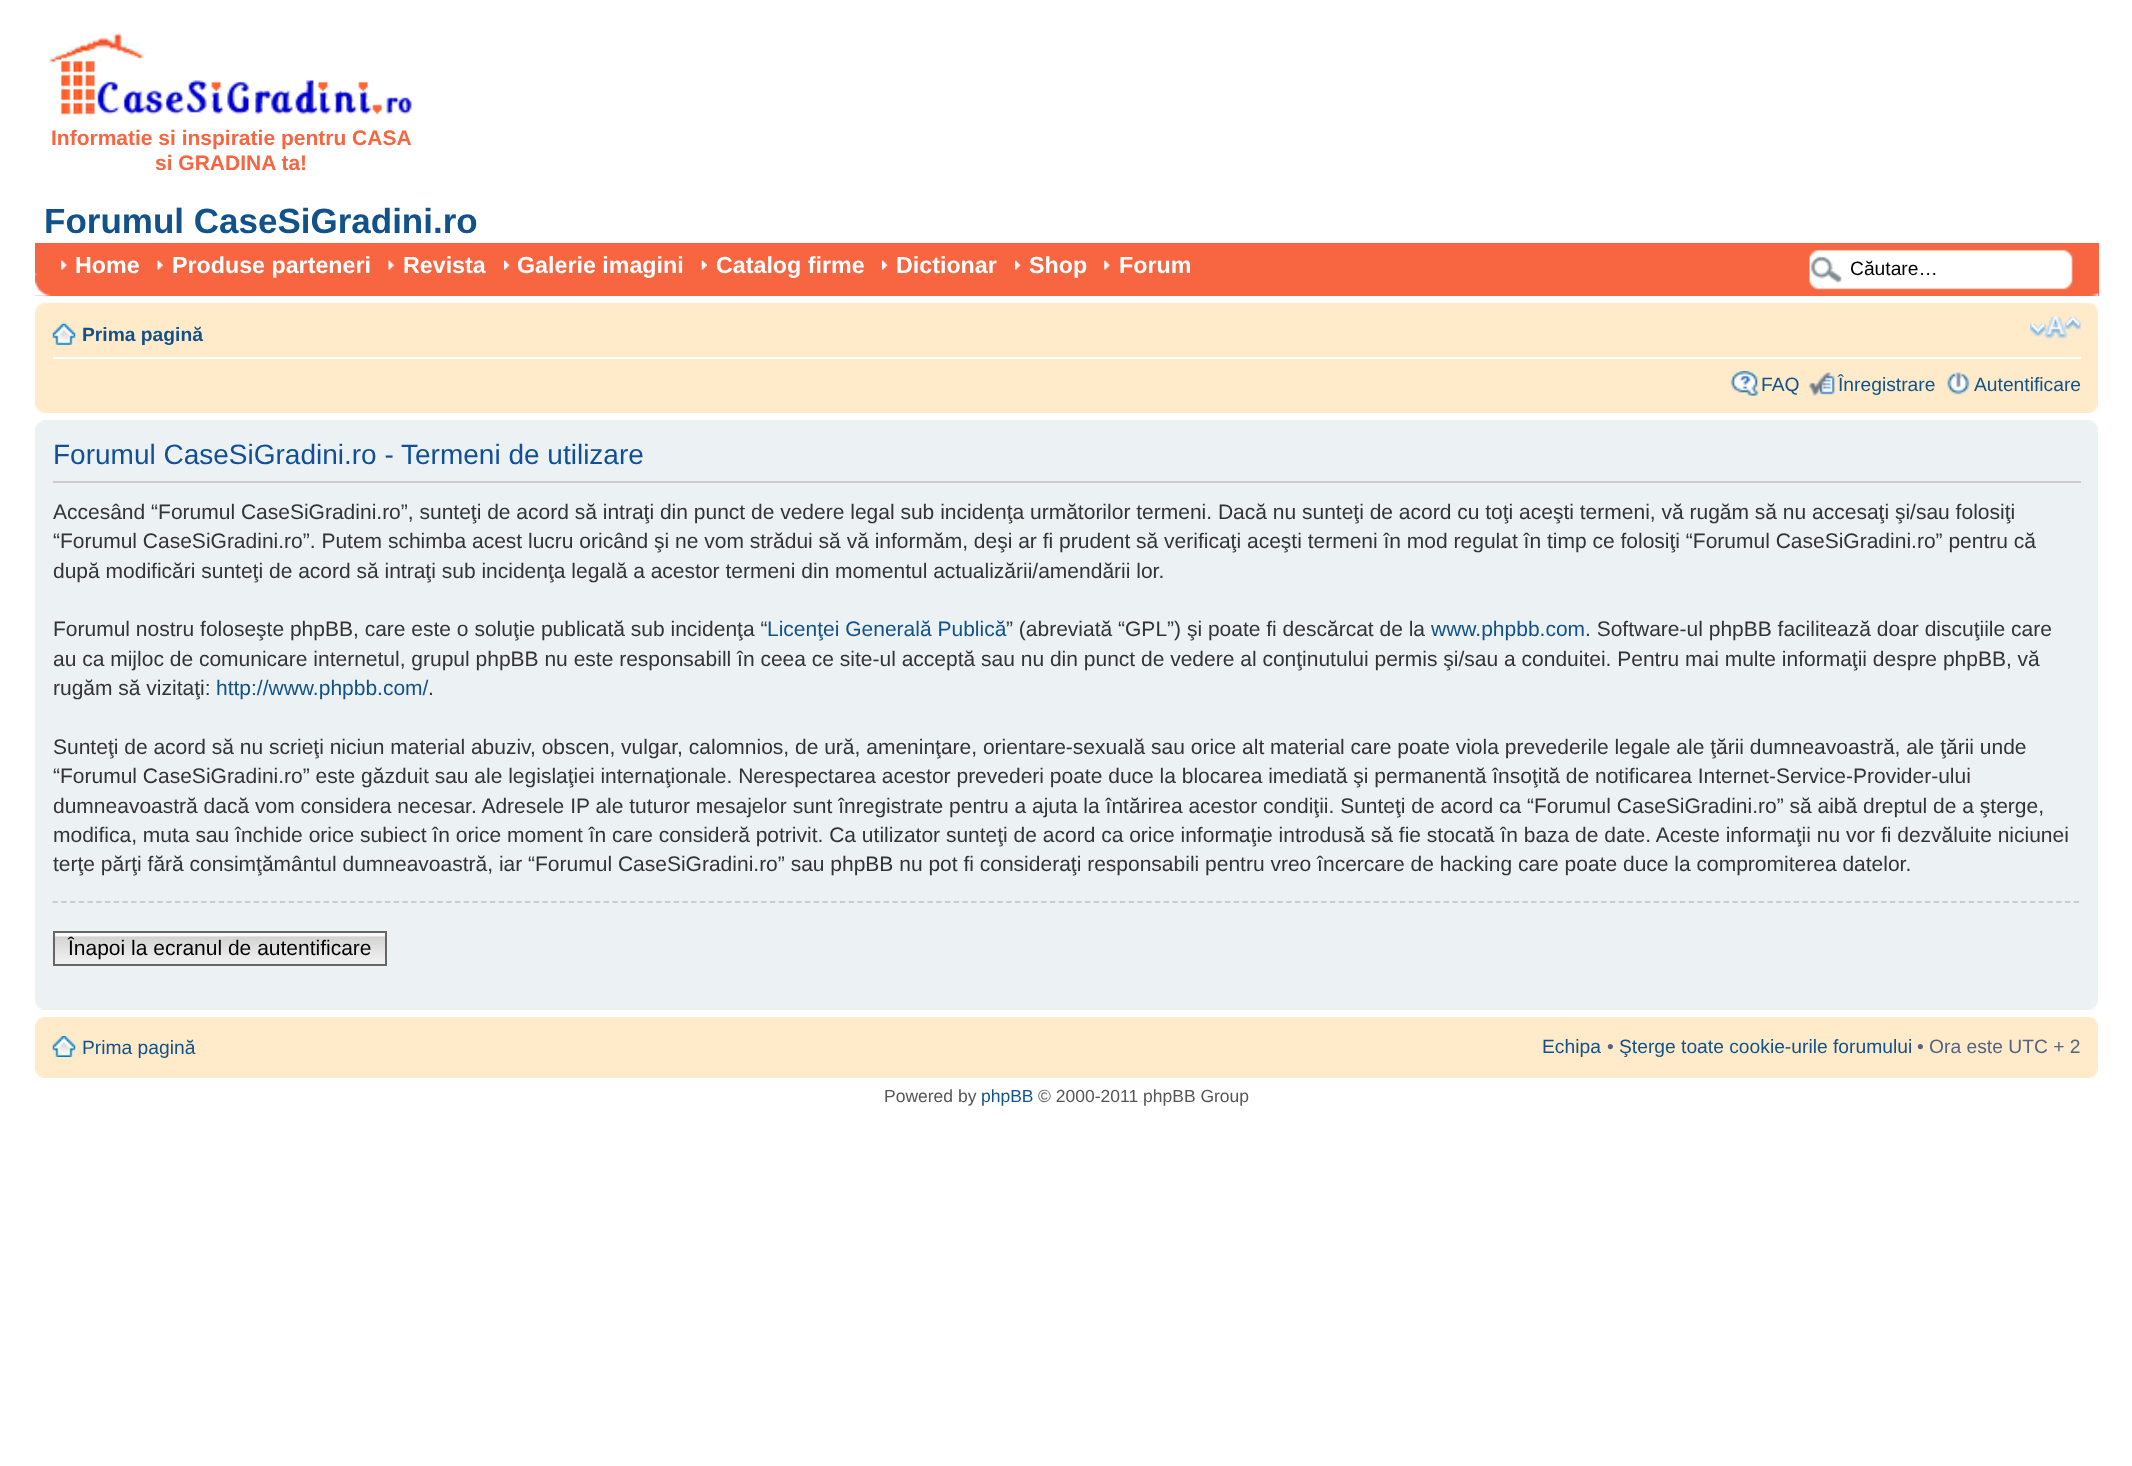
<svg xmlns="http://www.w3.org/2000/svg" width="2132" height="1466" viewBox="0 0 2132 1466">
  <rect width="100%" height="100%" fill="#fff"/>
  <image x="48" y="33" width="364" height="82" href="img/1.png"/>
  <path d="M35 243h2064v53H35z" fill="#f76541"/>
  <image x="61" y="260" width="6" height="10" href="img/2.png"/>
  <image x="157" y="260" width="6" height="10" href="img/3.png"/>
  <image x="388" y="260" width="6" height="10" href="img/3.png"/>
  <image x="504" y="260" width="6" height="10" href="img/4.png"/>
  <image x="701" y="260" width="6" height="10" href="img/5.png"/>
  <image x="882" y="260" width="6" height="10" href="img/6.png"/>
  <image x="1015" y="260" width="6" height="10" href="img/4.png"/>
  <image x="1104" y="260" width="6" height="10" href="img/2.png"/>
  <image x="1809" y="249" width="264" height="41" href="img/7.png"/>
  <image x="35" y="272" width="16" height="24" href="img/8.png"/>
  <image x="2091" y="292" width="8" height="4" href="img/9.png"/>
  <path d="M35 303h2063v110H35z" fill="#ffeaca"/>
  <image x="35" y="303" width="9" height="9" href="img/10.png"/>
  <image x="2089" y="303" width="9" height="9" href="img/11.png"/>
  <path d="M53 357h2028v2H53z" fill="#fff"/>
  <image x="52" y="323" width="24" height="22" href="img/12.png"/>
  <image x="2030" y="316" width="51" height="23" href="img/13.png"/>
  <image x="1730" y="371" width="29" height="25" href="img/14.png"/>
  <image x="1809" y="372" width="26" height="24" href="img/15.png"/>
  <image x="1947" y="372" width="23" height="23" href="img/16.png"/>
  <image x="35" y="404" width="9" height="9" href="img/17.png"/>
  <image x="2089" y="404" width="9" height="9" href="img/18.png"/>
  <path d="M35 420h2063v590H35z" fill="#ecf1f3"/>
  <image x="35" y="420" width="8" height="8" href="img/19.png"/>
  <image x="2090" y="420" width="8" height="8" href="img/20.png"/>
  <path d="M53 481h2028v2H53z" fill="#ccc"/>
  <path d="M52.5 902H2081" fill="none" stroke="#ccc" stroke-width="1.8" stroke-dasharray="5.25 3.5"/>
  <image x="52" y="936" width="333" height="30" href="img/21.png"/>
  <path d="M55 933h330v3H55z" fill="#fafafa"/>
  <path d="M54 932h332v33H54z" fill="none" stroke="#666" stroke-width="2"/>
  <image x="35" y="1001" width="8" height="9" href="img/22.png"/>
  <image x="2091" y="1001" width="7" height="9" href="img/23.png"/>
  <path d="M35 1017h2063v61H35z" fill="#ffeaca"/>
  <image x="35" y="1017" width="9" height="9" href="img/10.png"/>
  <image x="2089" y="1017" width="9" height="9" href="img/11.png"/>
  <image x="52" y="1036" width="24" height="21" href="img/24.png"/>
  <image x="35" y="1069" width="9" height="9" href="img/17.png"/>
  <image x="2089" y="1069" width="9" height="9" href="img/18.png"/>
  <g font-family="Liberation Sans" font-size="21" font-weight="bold" fill="#f76541">
    <text x="51" y="145">Informatie si inspiratie pentru CASA</text>
    <text x="155" y="170">si GRADINA ta!</text>
  </g>
  <text x="44" y="233" font-family="Liberation Sans" font-size="35" font-weight="bold" fill="#105289">Forumul CaseSiGradini.ro</text>
  <g font-family="Liberation Sans" font-size="23.25" font-weight="bold" fill="#fff">
    <text x="75" y="273">Home</text>
    <text x="172" y="273">Produse parteneri</text>
    <text x="403" y="273">Revista</text>
    <text x="517" y="273">Galerie imagini</text>
    <text x="716" y="273">Catalog firme</text>
    <text x="896" y="273">Dictionar</text>
    <text x="1029" y="273">Shop</text>
    <text x="1119" y="273">Forum</text>
  </g>
  <text x="1850" y="275" font-family="Liberation Sans" font-size="19.25" fill="#000">Căutare…</text>
  <text x="82" y="341" font-family="Liberation Sans" font-size="19.25" font-weight="bold" fill="#105289">Prima pagină</text>
  <g font-family="Liberation Sans" font-size="19.25" fill="#105289">
    <text x="1761" y="391">FAQ</text>
    <text x="1838" y="391">Înregistrare</text>
    <text x="1974" y="391">Autentificare</text>
  </g>
  <text x="53" y="464" font-family="Liberation Sans" font-size="28" fill="#115098">Forumul CaseSiGradini.ro - Termeni de utilizare</text>
  <g font-family="Liberation Sans" font-size="21" fill="#333">
    <text x="53" y="519">Accesând “Forumul CaseSiGradini.ro”, sunteţi de acord să intraţi din punct de vedere legal sub incidenţa următorilor termeni. Dacă nu sunteţi de acord cu toţi aceşti termeni, vă rugăm să nu accesaţi şi/sau folosiţi</text>
    <text x="53" y="548">“Forumul CaseSiGradini.ro”. Putem schimba acest lucru oricând şi ne vom strădui să vă informăm, deşi ar fi prudent să verificaţi aceşti termeni în mod regulat în timp ce folosiţi “Forumul CaseSiGradini.ro” pentru că</text>
    <text x="53" y="578">după modificări sunteţi de acord să intraţi sub incidenţa legală a acestor termeni din momentul actualizării/amendării lor.</text>
    <text x="53" y="636">Forumul nostru foloseşte phpBB, care este o soluţie publicată sub incidenţa “</text>
  </g>
  <text x="767" y="636" font-family="Liberation Sans" font-size="21" fill="#105289">Licenţei Generală Publică</text>
  <text x="1006" y="636" font-family="Liberation Sans" font-size="21" fill="#333">” (abreviată “GPL”) şi poate fi descărcat de la</text>
  <text x="1431" y="636" font-family="Liberation Sans" font-size="21" fill="#105289">www.phpbb.com</text>
  <g font-family="Liberation Sans" font-size="21" fill="#333">
    <text x="1585" y="636">. Software-ul phpBB facilitează doar discuţiile care</text>
    <text x="53" y="666">au ca mijloc de comunicare internetul, grupul phpBB nu este responsabill în ceea ce site-ul acceptă sau nu din punct de vedere al conţinutului permis şi/sau a conduitei. Pentru mai multe informaţii despre phpBB, vă</text>
    <text x="53" y="695">rugăm să vizitaţi:</text>
  </g>
  <text x="216" y="695" font-family="Liberation Sans" font-size="21" fill="#105289">http://www.phpbb.com/</text>
  <g font-family="Liberation Sans" font-size="21" fill="#333">
    <text x="428" y="695">.</text>
    <text x="53" y="754">Sunteţi de acord să nu scrieţi niciun material abuziv, obscen, vulgar, calomnios, de ură, ameninţare, orientare-sexuală sau orice alt material care poate viola prevederile legale ale ţării dumneavoastră, ale ţării unde</text>
    <text x="53" y="783">“Forumul CaseSiGradini.ro” este găzduit sau ale legislaţiei internaţionale. Nerespectarea acestor prevederi poate duce la blocarea imediată şi permanentă însoţită de notificarea Internet-Service-Provider-ului</text>
    <text x="53" y="813">dumneavoastră dacă vom considera necesar. Adresele IP ale tuturor mesajelor sunt înregistrate pentru a ajuta la întărirea acestor condiţii. Sunteţi de acord ca “Forumul CaseSiGradini.ro” să aibă dreptul de a şterge,</text>
    <text x="53" y="842">modifica, muta sau închide orice subiect în orice moment în care consideră potrivit. Ca utilizator sunteţi de acord ca orice informaţie introdusă să fie stocată în baza de date. Aceste informaţii nu vor fi dezvăluite niciunei</text>
    <text x="53" y="871">terţe părţi fără consimţământul dumneavoastră, iar “Forumul CaseSiGradini.ro” sau phpBB nu pot fi consideraţi responsabili pentru vreo încercare de hacking care poate duce la compromiterea datelor.</text>
  </g>
  <text x="68" y="955" font-family="Liberation Sans" font-size="21" fill="#000">Înapoi la ecranul de autentificare</text>
  <g font-family="Liberation Sans" font-size="19.25" fill="#105289">
    <text x="82" y="1054">Prima pagină</text>
    <text x="1542" y="1053">Echipa</text>
  </g>
  <text x="1607" y="1053" font-family="Liberation Sans" font-size="19.25" fill="#536482">•</text>
  <text x="1619" y="1053" font-family="Liberation Sans" font-size="19.25" fill="#105289">Şterge toate cookie-urile forumului</text>
  <text x="1917" y="1053" font-family="Liberation Sans" font-size="19.25" fill="#536482">• Ora este UTC + 2</text>
  <text x="884" y="1102" font-family="Liberation Sans" font-size="17.5" fill="#555">Powered by</text>
  <text x="981" y="1102" font-family="Liberation Sans" font-size="17.5" fill="#105289">phpBB</text>
  <text x="1038" y="1102" font-family="Liberation Sans" font-size="17.5" fill="#555">© 2000-2011 phpBB Group</text>
</svg>
